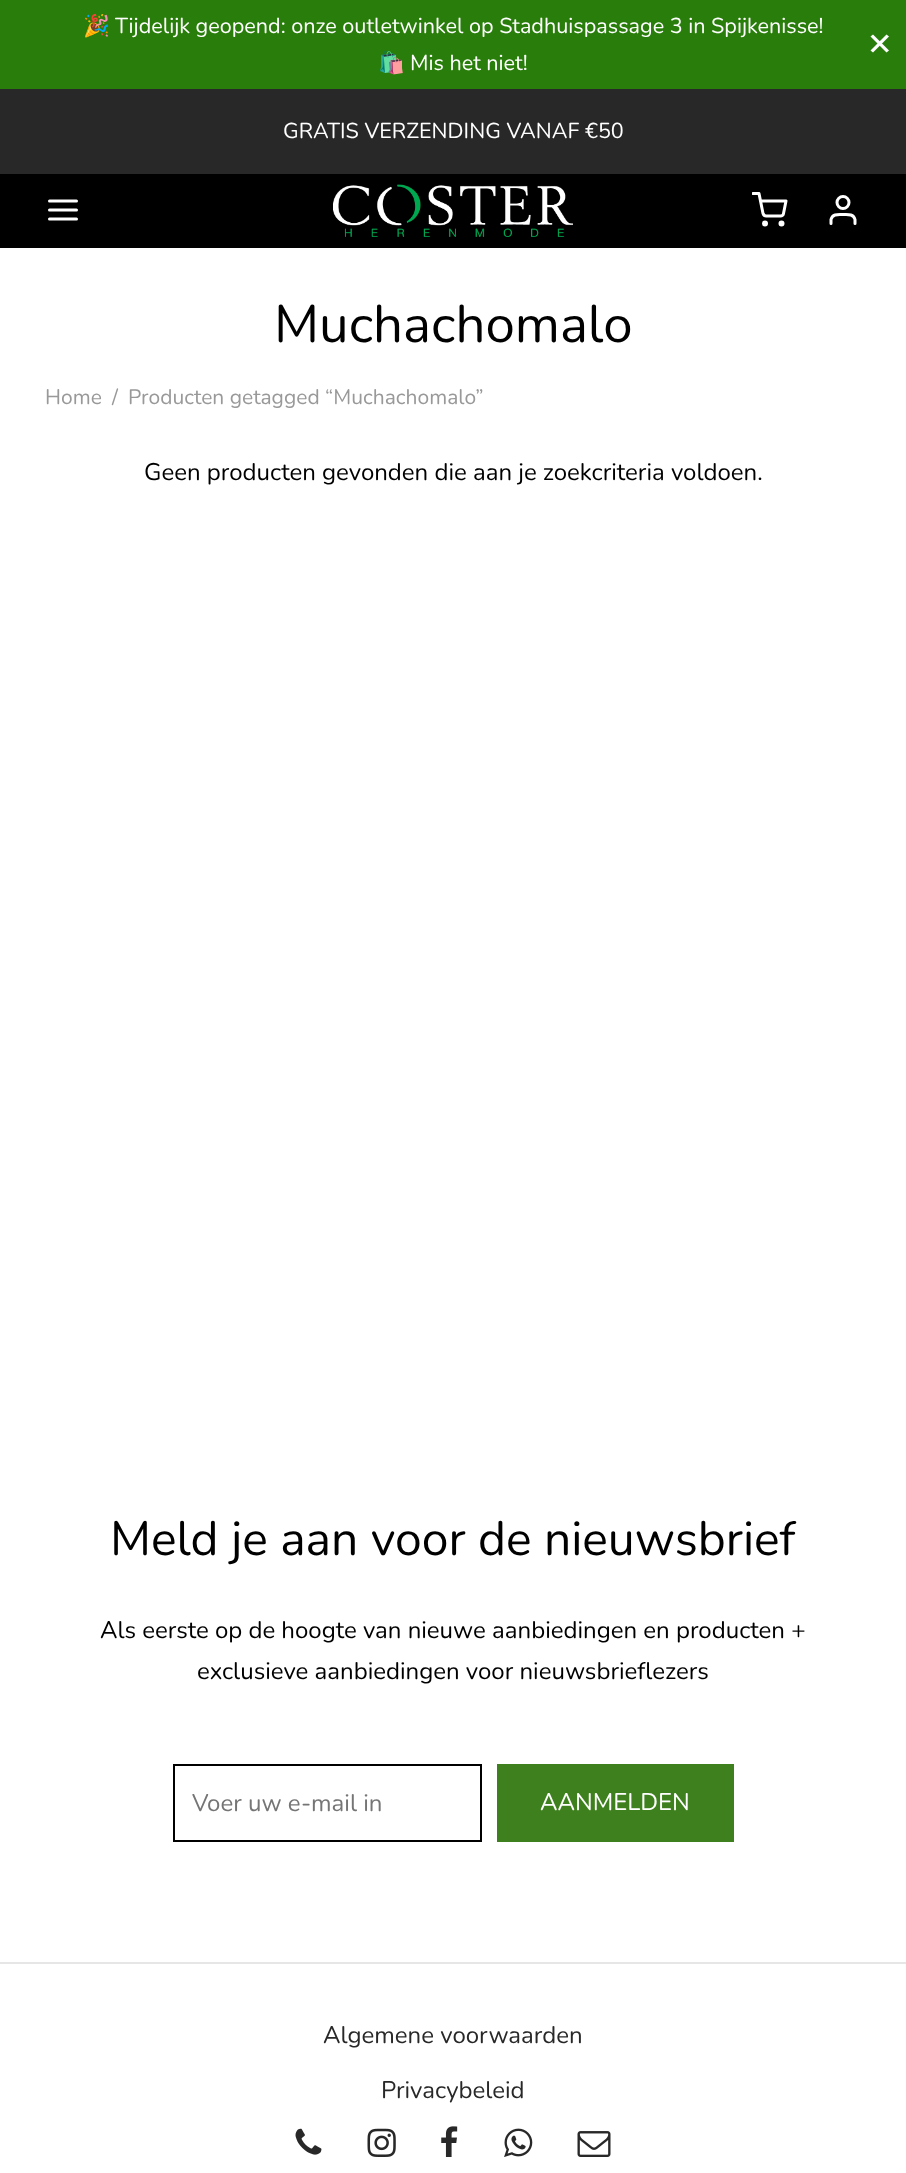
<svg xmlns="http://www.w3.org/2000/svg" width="906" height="2173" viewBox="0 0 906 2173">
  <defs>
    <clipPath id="clip1"><path d="M752 192h36v36H752z"/></clipPath>
  </defs>
  <rect width="100%" height="100%" fill="#fff"/>
  <path d="M0 0h906v89H0z" fill="#297e0b"/>
  <path d="M873 34.5L889 50.5L886.5 52.5L870.5 36.5Z" fill="#fff"/>
  <path d="M870.5 50.5L886.5 34.5L889 36.5L873 52.5Z" fill="#fff"/>
  <path d="M0 89h906v85H0z" fill="#282828"/>
  <path d="M0 174h906v74H0z" fill="#000"/>
  <path d="M49.5 210H76.5M49.5 201H76.5M49.5 219H76.5" fill="none" stroke="#fff" stroke-width="3" stroke-linecap="round" stroke-linejoin="round"/>
  <image x="333" y="184" width="240" height="53" href="img/1.png"/>
  <circle cx="765" cy="223.5" r="1.5" fill="none" stroke="#fff" stroke-width="3"/>
  <circle cx="781.5" cy="223.5" r="1.5" fill="none" stroke="#fff" stroke-width="3"/>
  <g clip-path="url(#clip1)">
    <path d="M753 193.5H759L763 213.5C763.5 215 764.5 216 766 216H780.5C782 216 783.5 215 783.5 213.5L786 201H760.5" fill="none" stroke="#fff" stroke-width="3" stroke-linecap="round" stroke-linejoin="round"/>
  </g>
  <path d="M855 223.5V219.5C853.5 213.5 847.5 214.5 843 214.5C838.5 214.5 832.5 213.5 831 219.5V223.5" fill="none" stroke="#fff" stroke-width="3" stroke-linecap="round" stroke-linejoin="round"/>
  <circle cx="843" cy="202.5" r="6" fill="none" stroke="#fff" stroke-width="3"/>
  <path d="M174 1765h307v76H174z" fill="none" stroke="#000" stroke-width="2"/>
  <path d="M497 1764h237v78H497z" fill="#3e801d"/>
  <path d="M0 1962h906v2H0z" fill="#e6e6e6"/>
  <image x="295" y="2128" width="27" height="27" href="img/2.png"/>
  <image x="367" y="2128" width="29" height="29" href="img/3.png"/>
  <image x="441" y="2126" width="17" height="31" href="img/4.png"/>
  <image x="504" y="2128" width="29" height="29" href="img/5.png"/>
  <image x="577" y="2131" width="34" height="26" href="img/6.png"/>
  <text x="83" y="33" font-family="Noto Color Emoji" font-size="21.6" fill="#fff">🎉</text>
  <text x="115" y="33" font-family="Nunito" font-size="21.6" font-weight="200" fill="#fff">Tijdelijk geopend: onze outletwinkel op Stadhuispassage 3 in Spijkenisse!</text>
  <text x="378" y="70" font-family="Noto Color Emoji" font-size="21.6" fill="#fff">🛍️</text>
  <g font-family="Nunito" font-size="21.6" font-weight="200" fill="#fff">
    <text x="410" y="70">Mis het niet!</text>
    <text x="283" y="138">GRATIS VERZENDING VANAF €50</text>
  </g>
  <text x="274" y="342" font-family="Nunito" font-size="52.75" font-weight="200" fill="#000">Muchachomalo</text>
  <g font-family="Nunito" font-size="21" font-weight="200" fill="#999">
    <text x="45" y="404">Home</text>
    <text x="112" y="404">/</text>
    <text x="128" y="404">Producten getagged “Muchachomalo”</text>
  </g>
  <text x="144" y="480" font-family="Nunito" font-size="24" font-weight="200" fill="#000">Geen producten gevonden die aan je zoekcriteria voldoen.</text>
  <text x="110" y="1555" font-family="Nunito" font-size="48" font-weight="200" fill="#000">Meld je aan voor de nieuwsbrief</text>
  <g font-family="Nunito" font-size="24" font-weight="200" fill="#000">
    <text x="100" y="1638">Als eerste op de hoogte van nieuwe aanbiedingen en producten +</text>
    <text x="197" y="1679">exclusieve aanbiedingen voor nieuwsbrieflezers</text>
  </g>
  <text x="192" y="1811" font-family="Nunito" font-size="24" font-weight="200" fill="#757575">Voer uw e-mail in</text>
  <text x="540" y="1810" font-family="Nunito" font-size="24" font-weight="200" fill="#fff">AANMELDEN</text>
  <g font-family="Nunito" font-size="24" font-weight="200" fill="#282828">
    <text x="323" y="2043">Algemene voorwaarden</text>
    <text x="381" y="2098">Privacybeleid</text>
  </g>
</svg>
